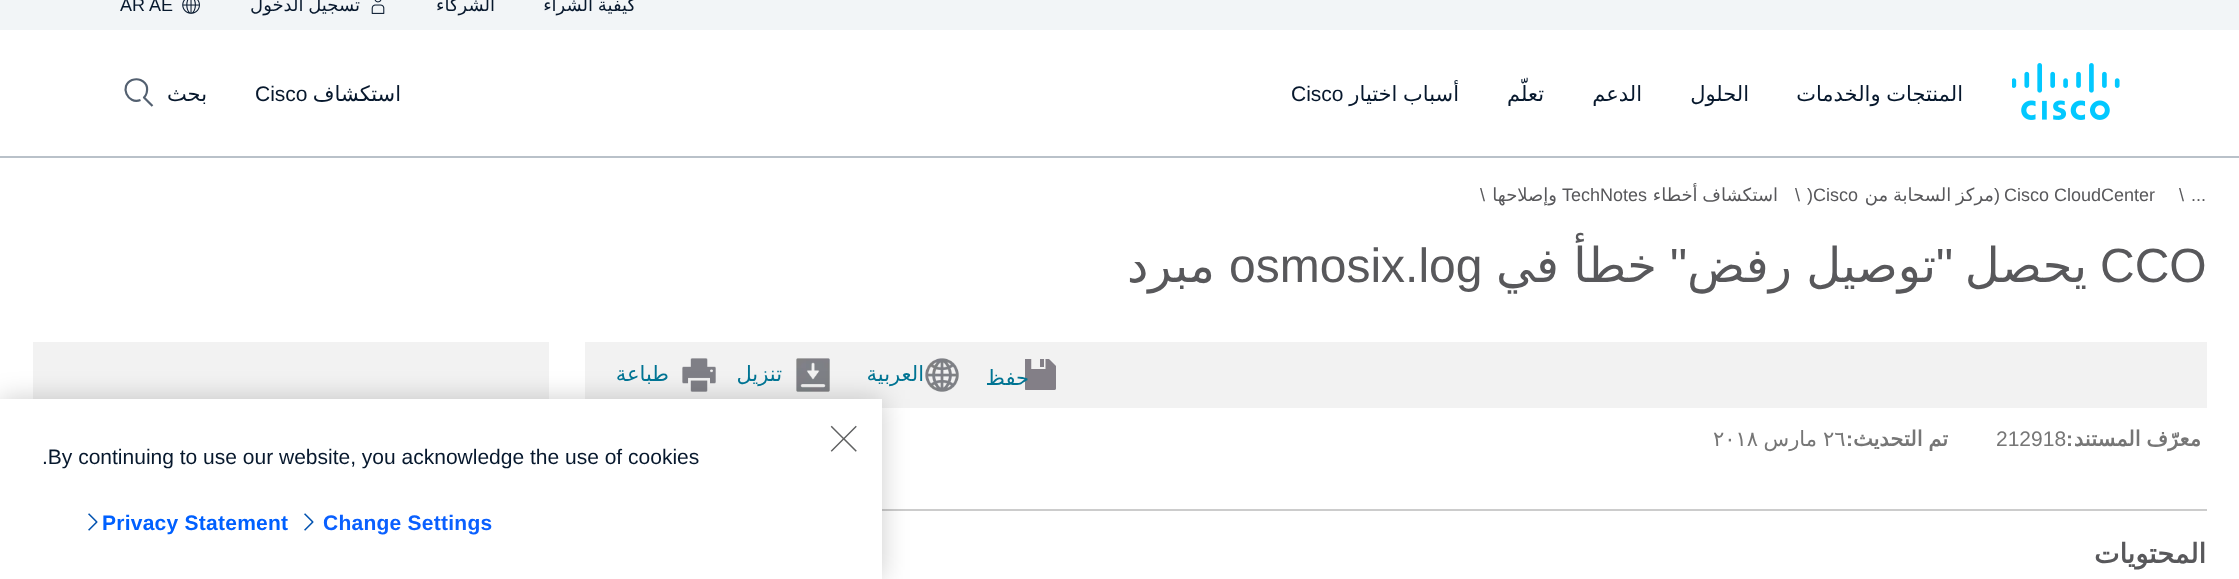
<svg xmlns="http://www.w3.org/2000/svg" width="2239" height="579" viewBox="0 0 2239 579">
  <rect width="100%" height="100%" fill="#f2f5f7"/>
  <image x="371" y="0" width="14" height="14" href="img/1.png"/>
  <image x="182" y="0" width="18" height="14" href="img/2.png"/>
  <path d="M0 30h2239v126H0z" fill="#fff"/>
  <path d="M0 156h2239v2H0z" fill="#b9c1c9"/>
  <image x="2012" y="63" width="108" height="57" href="img/3.png"/>
  <path d="M140.5 100C127.5 105 119 85.5 132 80C135 79 138 79 140.5 80C144 81.5 146.5 84.5 147 87.5C147.5 91.5 146.5 95 144 97.5L152.5 106" fill="none" stroke="#536070" stroke-width="2.2" stroke-linejoin="round"/>
  <path d="M0 158h2239v421H0z" fill="#fff"/>
  <path d="M882 509h1325v2H882z" fill="#ccc"/>
  <path d="M585 342h1622v66H585z" fill="#f2f2f2"/>
  <image x="1025" y="359" width="31" height="31" href="img/4.png"/>
  <image x="925" y="358" width="34" height="34" href="img/5.png"/>
  <image x="796" y="358" width="34" height="34" href="img/6.png"/>
  <image x="682" y="358" width="34" height="34" href="img/7.png"/>
  <path d="M33 342h516v57H33z" fill="#f2f2f2"/>
  <path d="M0 399h882v180H0z" fill="#00000033" filter="blur(13.5px)"/>
  <path d="M0 399h882v180H0z" fill="#fff"/>
  <image x="830" y="425" width="27" height="27" href="img/8.png"/>
  <image x="88" y="513" width="10" height="18" href="img/9.png"/>
  <image x="304" y="513" width="10" height="18" href="img/9.png"/>
  <g font-family="DejaVu Sans" font-size="18" direction="rtl" fill="#07182d">
    <text x="636" y="11" word-spacing="-1">كيفية الشراء</text>
    <text x="495" y="11">الشركاء</text>
    <text x="360" y="11" word-spacing="-1">تسجيل الدخول</text>
  </g>
  <text x="120" y="11" font-family="Liberation Sans" font-size="18" fill="#07182d">AR AE</text>
  <g font-family="DejaVu Sans" font-size="21" direction="rtl" fill="#07182d">
    <text x="1963" y="101" word-spacing="-1">المنتجات والخدمات</text>
    <text x="1749" y="101">الحلول</text>
    <text x="1642" y="101">الدعم</text>
    <text x="1544" y="101">تعلّم</text>
    <text x="1459" y="101" word-spacing="-1">أسباب اختيار</text>
  </g>
  <text x="1291" y="101" font-family="Liberation Sans" font-size="21" fill="#07182d">Cisco</text>
  <text x="401" y="101" font-family="DejaVu Sans" font-size="21" direction="rtl" fill="#07182d">استكشاف</text>
  <text x="255" y="101" font-family="Liberation Sans" font-size="21" fill="#07182d">Cisco</text>
  <text x="207" y="101" font-family="DejaVu Sans" font-size="21" direction="rtl" fill="#07182d">بحث</text>
  <g font-family="Liberation Sans" font-size="18" fill="#58585b">
    <text x="2191" y="201">...</text>
    <text x="2179" y="201">\</text>
    <text x="2004" y="201">Cisco CloudCenter</text>
  </g>
  <text x="2000" y="201" font-family="Liberation Sans" font-size="18" direction="rtl" fill="#58585b">(</text>
  <text x="1994" y="201" word-spacing="-1" font-family="DejaVu Sans" font-size="18" direction="rtl" fill="#58585b">مركز السحابة من</text>
  <g font-family="Liberation Sans" font-size="18" fill="#58585b">
    <text x="1807" y="201">)Cisco</text>
    <text x="1795" y="201">\</text>
  </g>
  <text x="1778" y="201" word-spacing="-1" font-family="DejaVu Sans" font-size="18" direction="rtl" fill="#58585b">استكشاف أخطاء</text>
  <text x="1562" y="201" font-family="Liberation Sans" font-size="18" fill="#58585b">TechNotes</text>
  <text x="1557" y="201" font-family="DejaVu Sans" font-size="18" direction="rtl" fill="#58585b">وإصلاحها</text>
  <text x="1480" y="201" font-family="Liberation Sans" font-size="18" fill="#58585b">\</text>
  <text x="2100" y="282" font-family="Liberation Sans" font-size="48" fill="#58585b">CCO</text>
  <text x="2087" y="282" font-family="DejaVu Sans" font-size="48" direction="rtl" fill="#58585b">يحصل</text>
  <text x="1953" y="282" font-family="Liberation Sans" font-size="48" direction="rtl" fill="#58585b">"</text>
  <text x="1936" y="282" word-spacing="-1" font-family="DejaVu Sans" font-size="48" direction="rtl" fill="#58585b">توصيل رفض</text>
  <text x="1687" y="282" font-family="Liberation Sans" font-size="48" direction="rtl" fill="#58585b">"</text>
  <text x="1657" y="282" word-spacing="-1" font-family="DejaVu Sans" font-size="48" direction="rtl" fill="#58585b">خطأ في</text>
  <text x="1229" y="282" font-family="Liberation Sans" font-size="48" fill="#58585b">osmosix.log</text>
  <text x="1215" y="282" font-family="DejaVu Sans" font-size="48" direction="rtl" fill="#58585b">مبرد</text>
  <g font-family="DejaVu Sans" font-size="21" direction="rtl" fill="#007493">
    <text x="1029" y="385">حفظ</text>
    <text x="924" y="381">العربية</text>
    <text x="782" y="381">تنزيل</text>
    <text x="669" y="381">طباعة</text>
  </g>
  <text x="2201" y="446" word-spacing="-1" font-family="DejaVu Sans" font-size="21" font-weight="bold" direction="rtl" fill="#767676">معرّف المستند</text>
  <text x="2073" y="446" font-family="Liberation Sans" font-size="21" font-weight="bold" direction="rtl" fill="#767676">:</text>
  <text x="1996" y="446" font-family="Liberation Sans" font-size="21" fill="#767676">212918</text>
  <text x="1948" y="446" word-spacing="-1" font-family="DejaVu Sans" font-size="21" font-weight="bold" direction="rtl" fill="#767676">تم التحديث</text>
  <text x="1853" y="446" font-family="Liberation Sans" font-size="21" font-weight="bold" direction="rtl" fill="#767676">:</text>
  <text x="1823" y="446" font-family="DejaVu Sans" font-size="21" fill="#767676">٢٦</text>
  <text x="1817" y="446" font-family="DejaVu Sans" font-size="21" direction="rtl" fill="#767676">مارس</text>
  <text x="1713" y="446" font-family="DejaVu Sans" font-size="21" fill="#767676">٢٠١٨</text>
  <text x="2206" y="563" font-family="DejaVu Sans" font-size="27" font-weight="bold" direction="rtl" fill="#58585b">المحتويات</text>
  <text x="42" y="464" font-family="Liberation Sans" font-size="21" fill="#07182d">.By continuing to use our website, you acknowledge the use of cookies</text>
  <text x="323" y="530" font-family="Liberation Sans" font-size="21" font-weight="bold" letter-spacing="0.25" fill="#0a60ff">Change Settings</text>
  <text x="102" y="530" font-family="Liberation Sans" font-size="21" font-weight="bold" letter-spacing="0.25" fill="#0060ff">Privacy Statement</text>
</svg>
